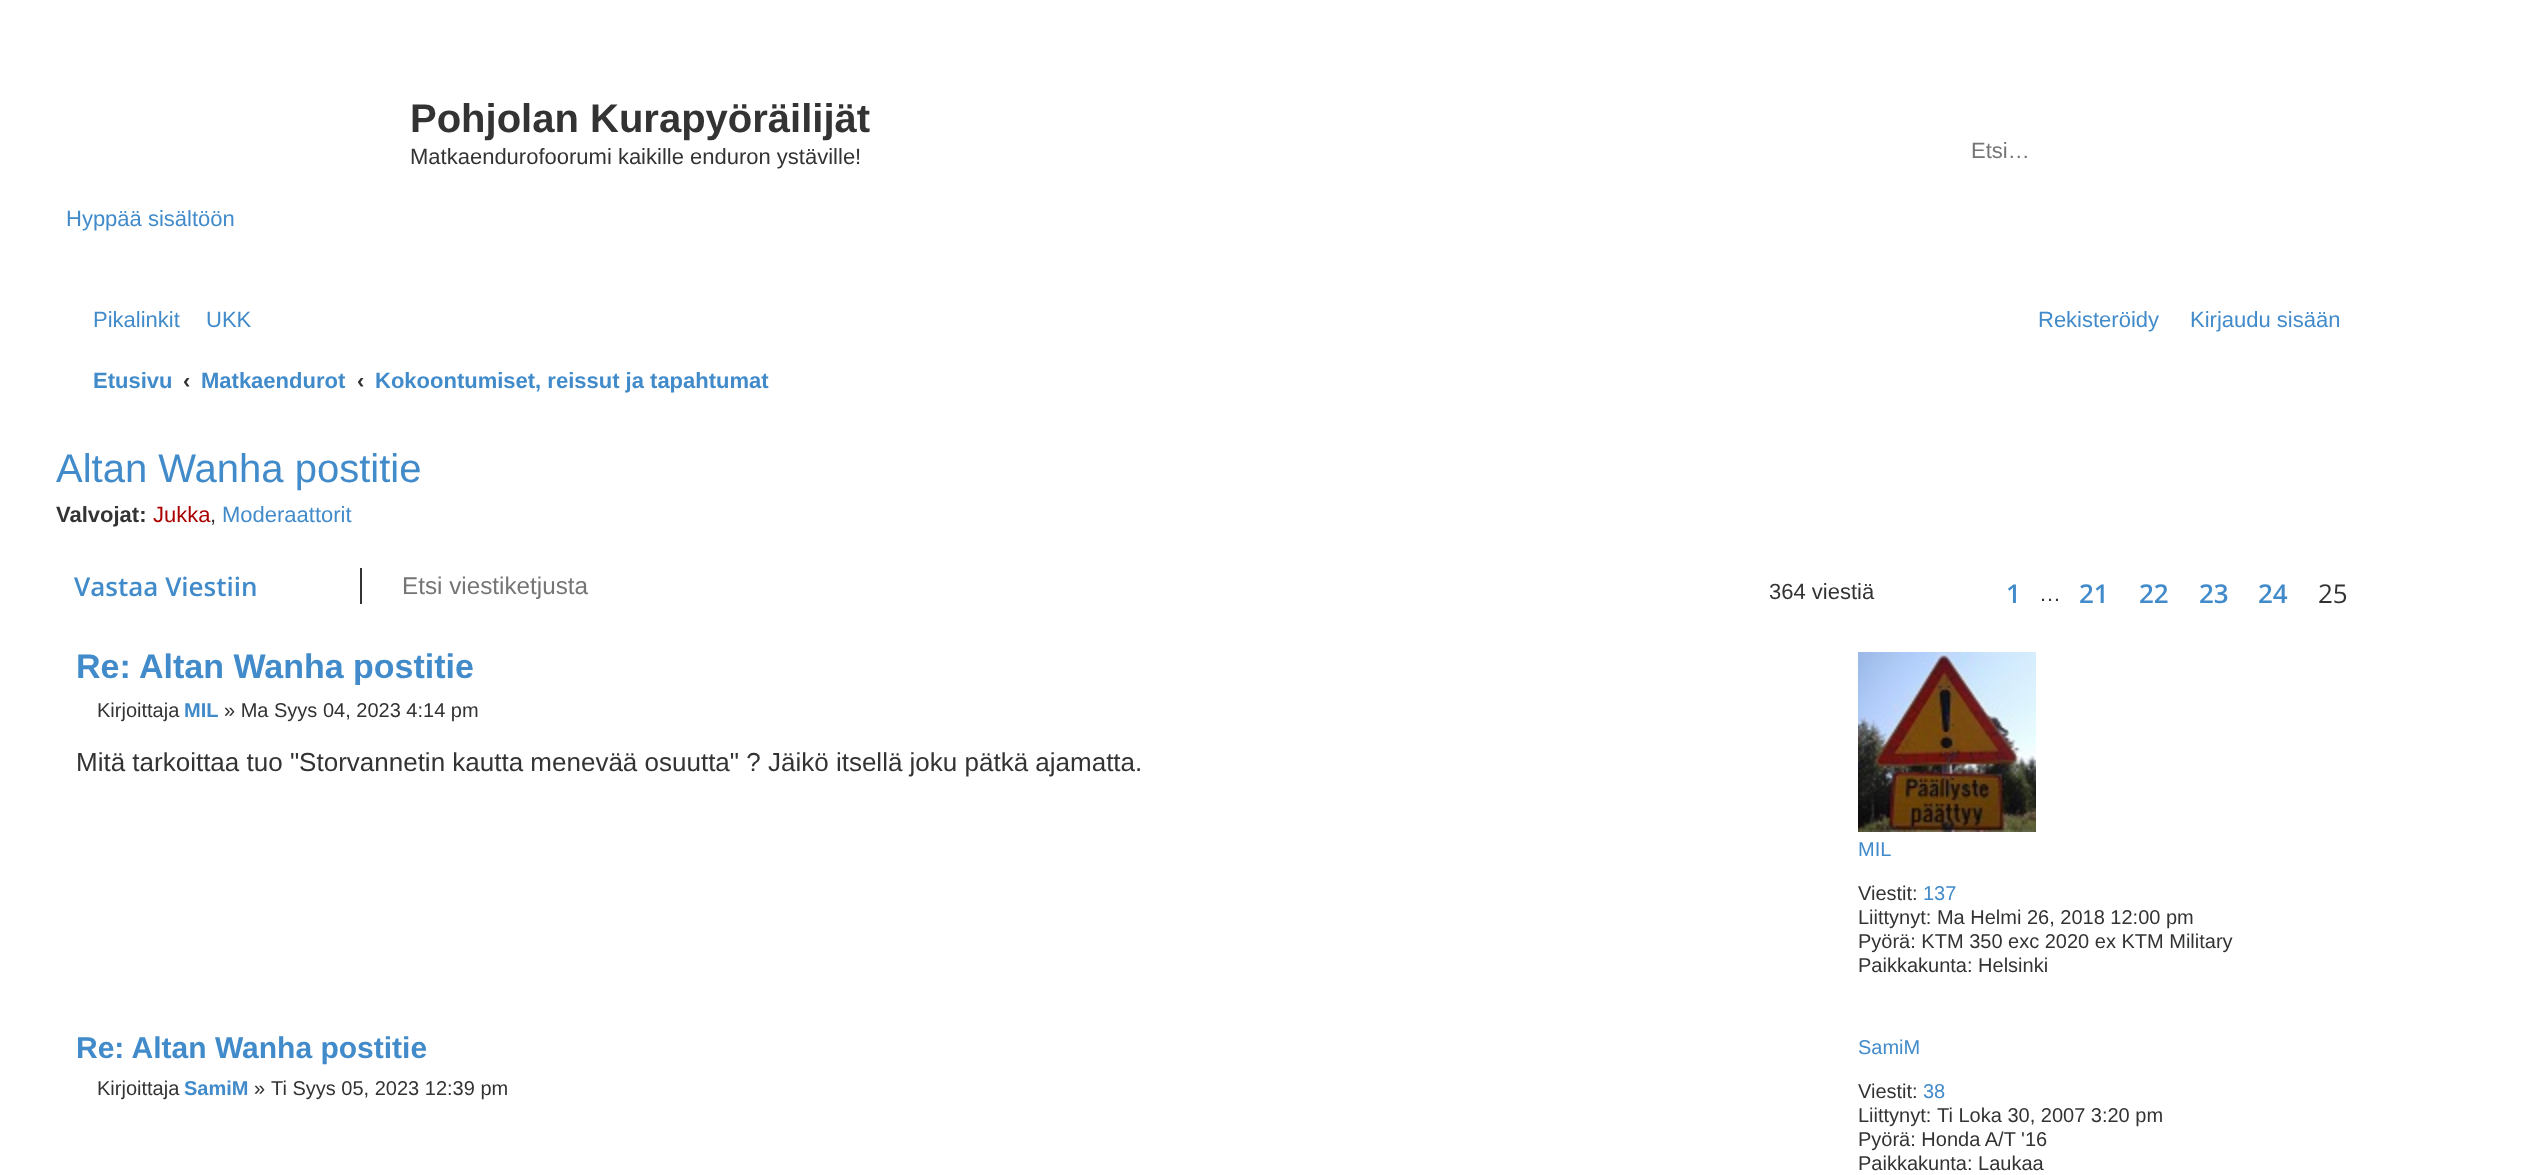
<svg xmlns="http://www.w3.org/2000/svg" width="2544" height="1175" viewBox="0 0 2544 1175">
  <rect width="100%" height="100%" fill="#fff"/>
  <path d="M360 568h2v36H360z" fill="#333"/>
  <image x="1858" y="652" width="178" height="180" href="img/1.png"/>
  <text x="410" y="132" font-family="Liberation Sans" font-size="40" font-weight="bold" fill="#333">Pohjolan Kurapyöräilijät</text>
  <text x="410" y="164" font-family="Liberation Sans" font-size="22" fill="#333">Matkaendurofoorumi kaikille enduron ystäville!</text>
  <text x="66" y="226" font-family="Liberation Sans" font-size="22" fill="#428bca">Hyppää sisältöön</text>
  <text x="1971" y="158" font-family="Liberation Sans" font-size="22" fill="#757575">Etsi…</text>
  <g font-family="Liberation Sans" font-size="22" fill="#428bca">
    <text x="93" y="327">Pikalinkit</text>
    <text x="206" y="327">UKK</text>
    <text x="2038" y="327">Rekisteröidy</text>
    <text x="2190" y="327">Kirjaudu sisään</text>
  </g>
  <text x="93" y="388" font-family="Liberation Sans" font-size="22" font-weight="bold" fill="#428bca">Etusivu</text>
  <text x="183" y="388" font-family="Liberation Sans" font-size="22" font-weight="bold" fill="#333">‹</text>
  <text x="201" y="388" font-family="Liberation Sans" font-size="22" font-weight="bold" fill="#428bca">Matkaendurot</text>
  <text x="357" y="388" font-family="Liberation Sans" font-size="22" font-weight="bold" fill="#333">‹</text>
  <text x="375" y="388" font-family="Liberation Sans" font-size="22" font-weight="bold" fill="#428bca">Kokoontumiset, reissut ja tapahtumat</text>
  <text x="56" y="482" font-family="Liberation Sans" font-size="40" fill="#428bca">Altan Wanha postitie</text>
  <text x="56" y="522" font-family="Liberation Sans" font-size="22" font-weight="bold" fill="#333">Valvojat:</text>
  <text x="153" y="522" font-family="Liberation Sans" font-size="22" fill="#a00">Jukka</text>
  <text x="210" y="522" font-family="Liberation Sans" font-size="22" fill="#333">,</text>
  <text x="222" y="522" font-family="Liberation Sans" font-size="22" fill="#428bca">Moderaattorit</text>
  <text x="74" y="596" font-family="Open Sans" font-size="26" font-weight="600" fill="#428bca">Vastaa Viestiin</text>
  <text x="402" y="594" font-family="Liberation Sans" font-size="24.25" fill="#757575">Etsi viestiketjusta</text>
  <text x="1769" y="599" font-family="Liberation Sans" font-size="22" fill="#333">364 viestiä</text>
  <text x="2006" y="603" font-family="Open Sans" font-size="26" font-weight="600" fill="#428bca">1</text>
  <text x="2039" y="601" font-family="Liberation Sans" font-size="22" fill="#333">…</text>
  <g font-family="Open Sans" font-size="26" font-weight="600" fill="#428bca">
    <text x="2079" y="603">21</text>
    <text x="2139" y="603">22</text>
    <text x="2199" y="603">23</text>
    <text x="2258" y="603">24</text>
  </g>
  <text x="2318" y="603" font-family="Open Sans" font-size="26" fill="#333">25</text>
  <text x="76" y="678" font-family="Liberation Sans" font-size="34" font-weight="bold" fill="#428bca">Re: Altan Wanha postitie</text>
  <text x="97" y="717" font-family="Liberation Sans" font-size="20" fill="#333">Kirjoittaja</text>
  <text x="184" y="717" font-family="Liberation Sans" font-size="20" font-weight="bold" fill="#428bca">MIL</text>
  <text x="224" y="717" font-family="Liberation Sans" font-size="20" fill="#333">» Ma Syys 04, 2023 4:14 pm</text>
  <text x="76" y="771" font-family="Liberation Sans" font-size="26" fill="#333">Mitä tarkoittaa tuo "Storvannetin kautta menevää osuutta" ? Jäikö itsellä joku pätkä ajamatta.</text>
  <text x="1858" y="856" font-family="Liberation Sans" font-size="20" fill="#428bca">MIL</text>
  <text x="1858" y="900" font-family="Liberation Sans" font-size="20" fill="#333">Viestit:</text>
  <text x="1923" y="900" font-family="Liberation Sans" font-size="20" fill="#428bca">137</text>
  <g font-family="Liberation Sans" font-size="20" fill="#333">
    <text x="1858" y="924">Liittynyt: Ma Helmi 26, 2018 12:00 pm</text>
    <text x="1858" y="948">Pyörä: KTM 350 exc 2020 ex KTM Military</text>
    <text x="1858" y="972">Paikkakunta: Helsinki</text>
  </g>
  <text x="76" y="1058" font-family="Liberation Sans" font-size="30" font-weight="bold" fill="#428bca">Re: Altan Wanha postitie</text>
  <text x="97" y="1095" font-family="Liberation Sans" font-size="20" fill="#333">Kirjoittaja</text>
  <text x="184" y="1095" font-family="Liberation Sans" font-size="20" font-weight="bold" fill="#428bca">SamiM</text>
  <g font-family="Liberation Sans" font-size="20" fill="#333">
    <text x="254" y="1095">»</text>
    <text x="271" y="1095">Ti Syys 05, 2023 12:39 pm</text>
  </g>
  <text x="1858" y="1054" font-family="Liberation Sans" font-size="20" fill="#428bca">SamiM</text>
  <text x="1858" y="1098" font-family="Liberation Sans" font-size="20" fill="#333">Viestit:</text>
  <text x="1923" y="1098" font-family="Liberation Sans" font-size="20" fill="#428bca">38</text>
  <g font-family="Liberation Sans" font-size="20" fill="#333">
    <text x="1858" y="1122">Liittynyt:</text>
    <text x="1937" y="1122">Ti Loka 30, 2007 3:20 pm</text>
    <text x="1858" y="1146">Pyörä: Honda A/T '16</text>
    <text x="1858" y="1170">Paikkakunta: Laukaa</text>
  </g>
</svg>
